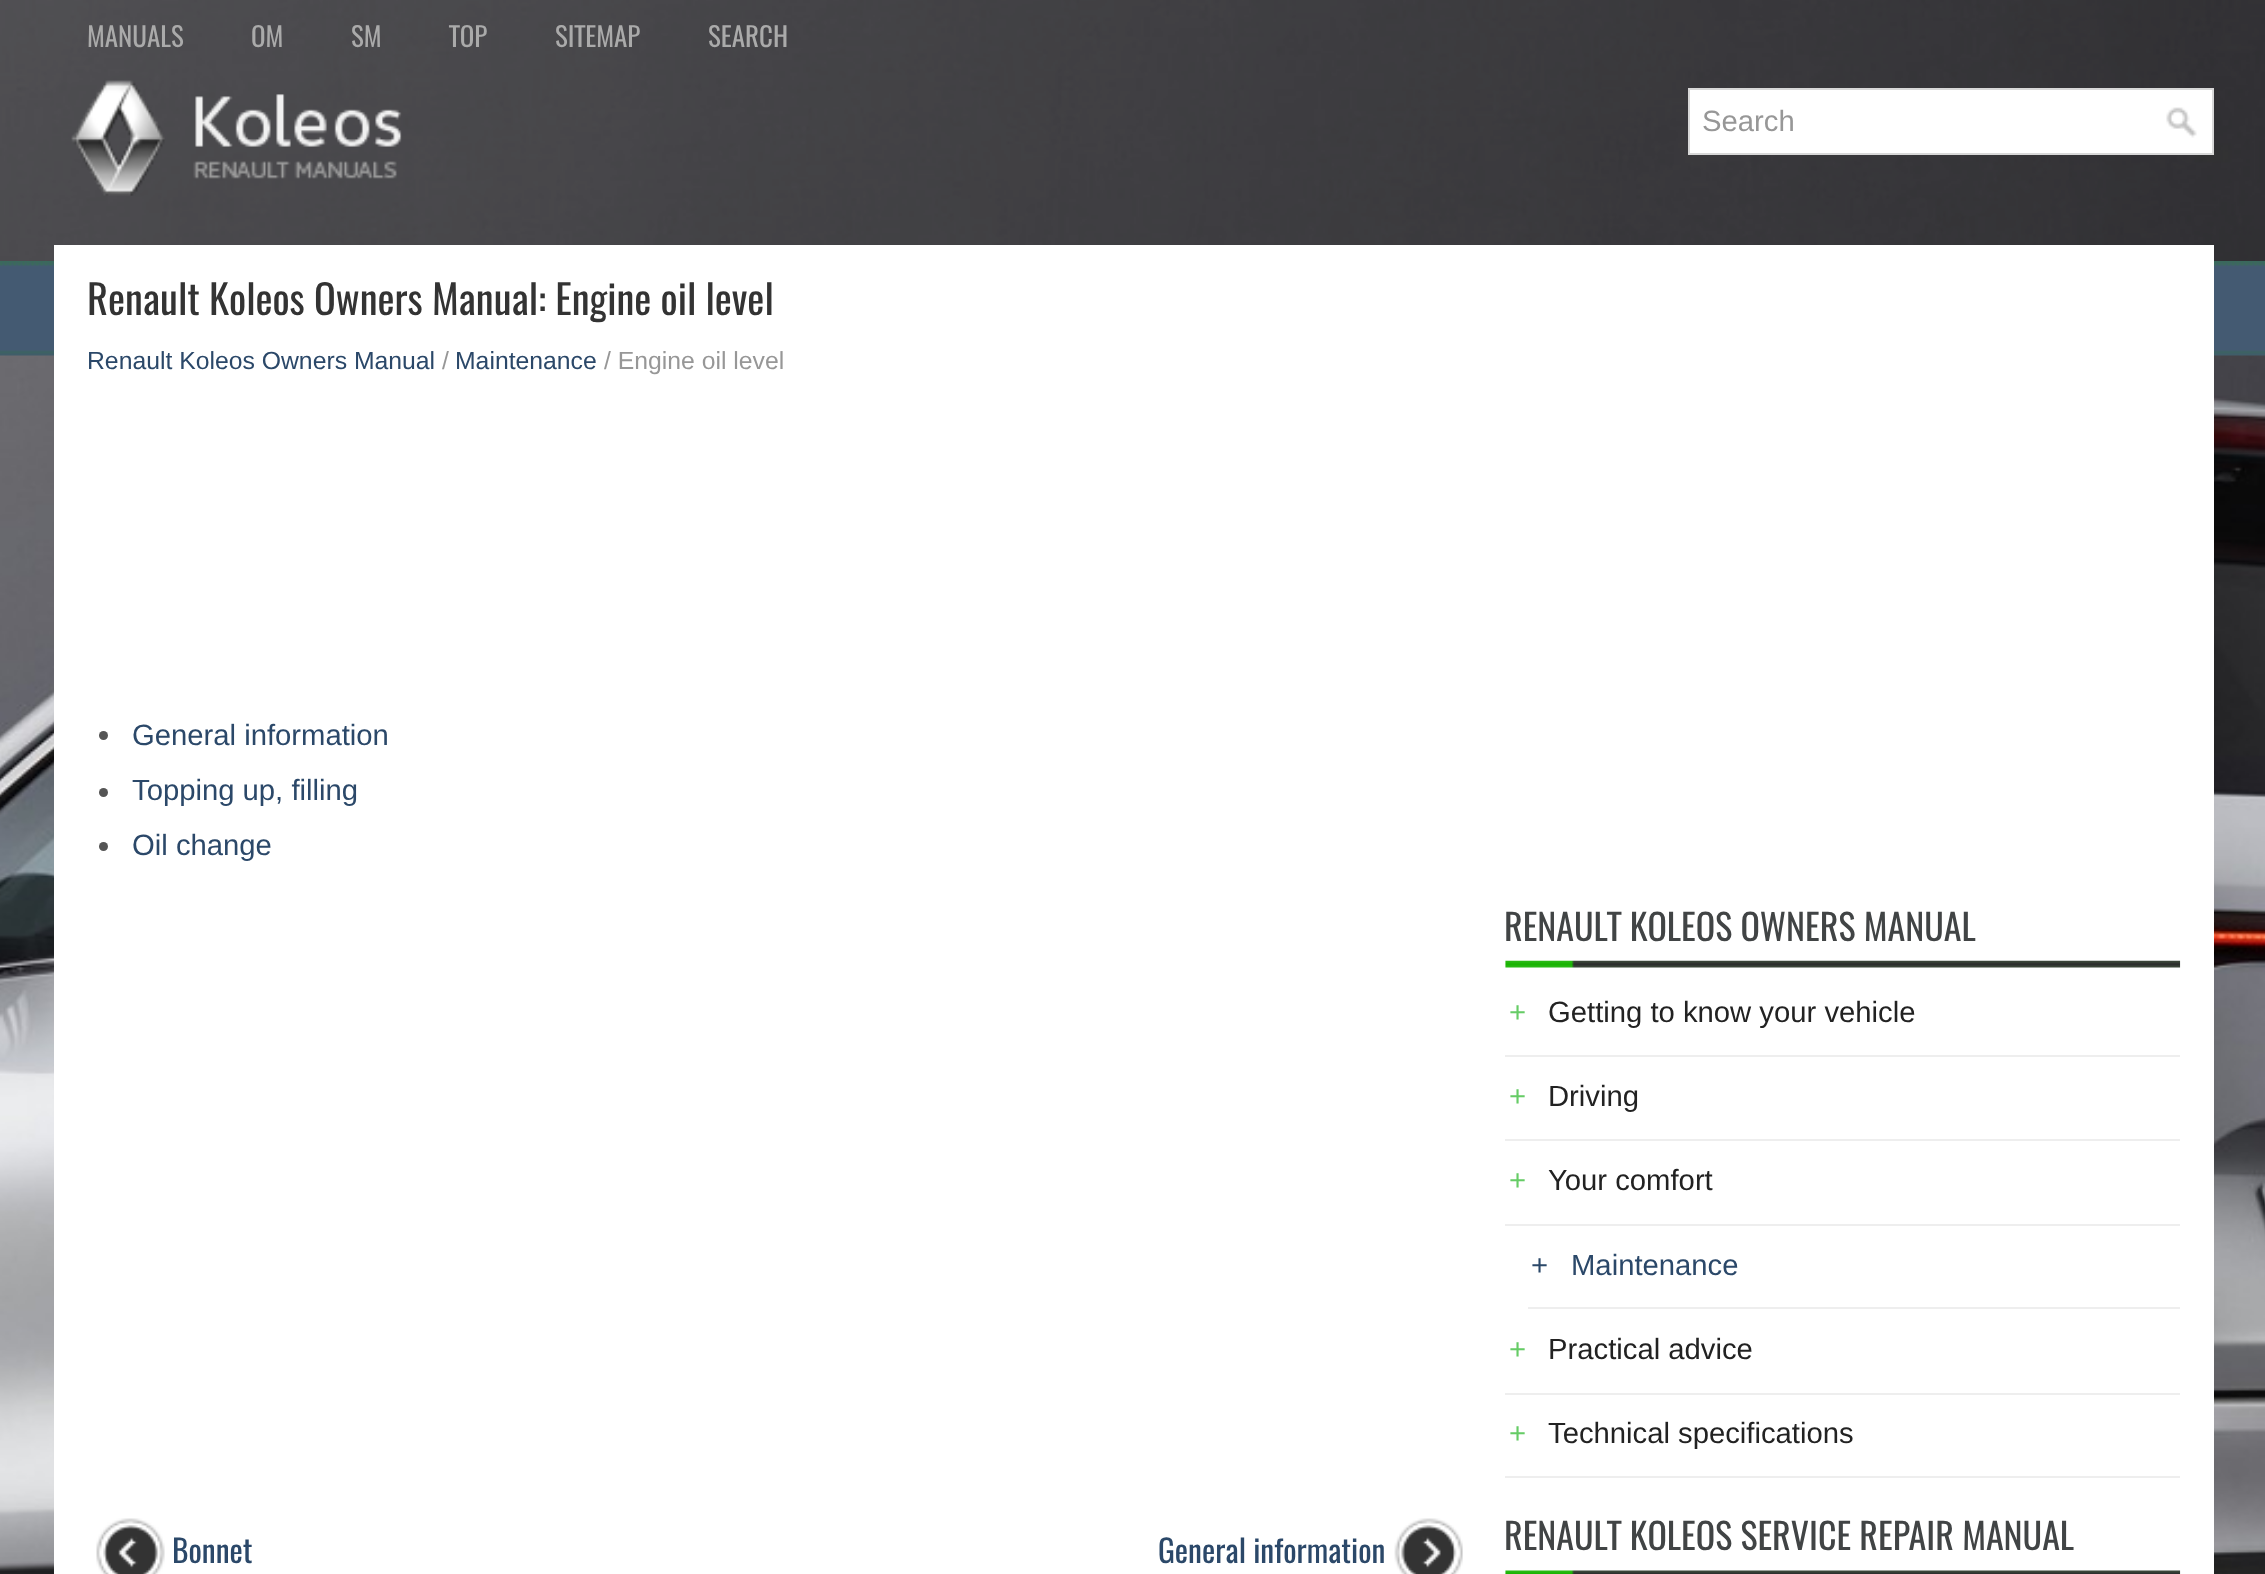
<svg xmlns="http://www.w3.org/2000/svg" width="2265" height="1574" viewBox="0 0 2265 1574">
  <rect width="100%" height="100%" fill="#fff"/>
  <image x="0" y="0" width="2265" height="1574" href="img/1.png"/>
  <path d="M0 0h2265v261H0z" fill="#0000004d"/>
  <image x="71" y="80" width="331" height="116" href="img/2.png"/>
  <path d="M1689 89h524v65H1689z" fill="#fff" stroke="#d8d8d8" stroke-width="2"/>
  <image x="2166" y="107" width="31" height="31" href="img/3.png"/>
  <path d="M54 245h2160v1329H54z" fill="#fff"/>
  <circle cx="103.5" cy="735.5" r="4.5" fill="#555"/>
  <circle cx="103.5" cy="792.5" r="4.5" fill="#555"/>
  <circle cx="103.5" cy="846.5" r="4.5" fill="#555"/>
  <image x="96" y="1518" width="69" height="56" href="img/4.png"/>
  <image x="1394" y="1518" width="69" height="56" href="img/5.png"/>
  <image x="1505" y="960" width="676" height="8" href="img/6.png"/>
  <path d="M1505 1055h675v2H1505z" fill="#eee"/>
  <path d="M1505 1139h675v2H1505z" fill="#eee"/>
  <path d="M1505 1224h675v2H1505z" fill="#eee"/>
  <path d="M1528 1307h652v2H1528z" fill="#eee"/>
  <path d="M1505 1393h675v2H1505z" fill="#eee"/>
  <path d="M1505 1476h675v2H1505z" fill="#eee"/>
  <image x="1505" y="1570" width="676" height="4" href="img/7.png"/>
  <g font-family="Oswald" font-size="27" fill="#aaa">
    <text x="87" y="47">MANUALS</text>
    <text x="251" y="47">OM</text>
    <text x="351" y="47">SM</text>
    <text x="449" y="47">TOP</text>
    <text x="555" y="47">SITEMAP</text>
    <text x="708" y="47">SEARCH</text>
  </g>
  <text x="1702" y="131" font-family="Liberation Sans" font-size="29.25" fill="#979797">Search</text>
  <text x="87" y="315" font-family="Oswald" font-size="40.5" fill="#333">Renault Koleos Owners Manual: Engine oil level</text>
  <text x="87" y="369" font-family="Liberation Sans" font-size="24.75" fill="#2b4869">Renault Koleos Owners Manual</text>
  <text x="442" y="369" font-family="Liberation Sans" font-size="24.75" fill="#979797">/</text>
  <text x="455" y="369" font-family="Liberation Sans" font-size="24.75" fill="#2b4869">Maintenance</text>
  <text x="604" y="369" font-family="Liberation Sans" font-size="24.75" fill="#979797">/ Engine oil level</text>
  <g font-family="Liberation Sans" font-size="29.25" fill="#2b4869">
    <text x="132" y="745">General information</text>
    <text x="132" y="800">Topping up, filling</text>
    <text x="132" y="855">Oil change</text>
  </g>
  <g font-family="Oswald" font-size="31.5" fill="#2b4869">
    <text x="172" y="1563">Bonnet</text>
    <text x="1158" y="1563">General information</text>
  </g>
  <text x="1504" y="941" font-family="Oswald" font-size="36" fill="#414445">RENAULT KOLEOS OWNERS MANUAL</text>
  <text x="1509" y="1022" font-family="Liberation Sans" font-size="29.25" fill="#6c6">+</text>
  <text x="1548" y="1022" font-family="Liberation Sans" font-size="29.25" fill="#222">Getting to know your vehicle</text>
  <text x="1509" y="1106" font-family="Liberation Sans" font-size="29.25" fill="#6c6">+</text>
  <text x="1548" y="1106" font-family="Liberation Sans" font-size="29.25" fill="#222">Driving</text>
  <text x="1509" y="1190" font-family="Liberation Sans" font-size="29.25" fill="#6c6">+</text>
  <text x="1548" y="1190" font-family="Liberation Sans" font-size="29.25" fill="#222">Your comfort</text>
  <g font-family="Liberation Sans" font-size="29.25" fill="#2b4869">
    <text x="1531" y="1275">+</text>
    <text x="1571" y="1275">Maintenance</text>
  </g>
  <text x="1509" y="1359" font-family="Liberation Sans" font-size="29.25" fill="#6c6">+</text>
  <text x="1548" y="1359" font-family="Liberation Sans" font-size="29.25" fill="#222">Practical advice</text>
  <text x="1509" y="1443" font-family="Liberation Sans" font-size="29.25" fill="#6c6">+</text>
  <text x="1548" y="1443" font-family="Liberation Sans" font-size="29.25" fill="#222">Technical specifications</text>
  <text x="1504" y="1550" font-family="Oswald" font-size="36" fill="#414445">RENAULT KOLEOS SERVICE REPAIR MANUAL</text>
</svg>
